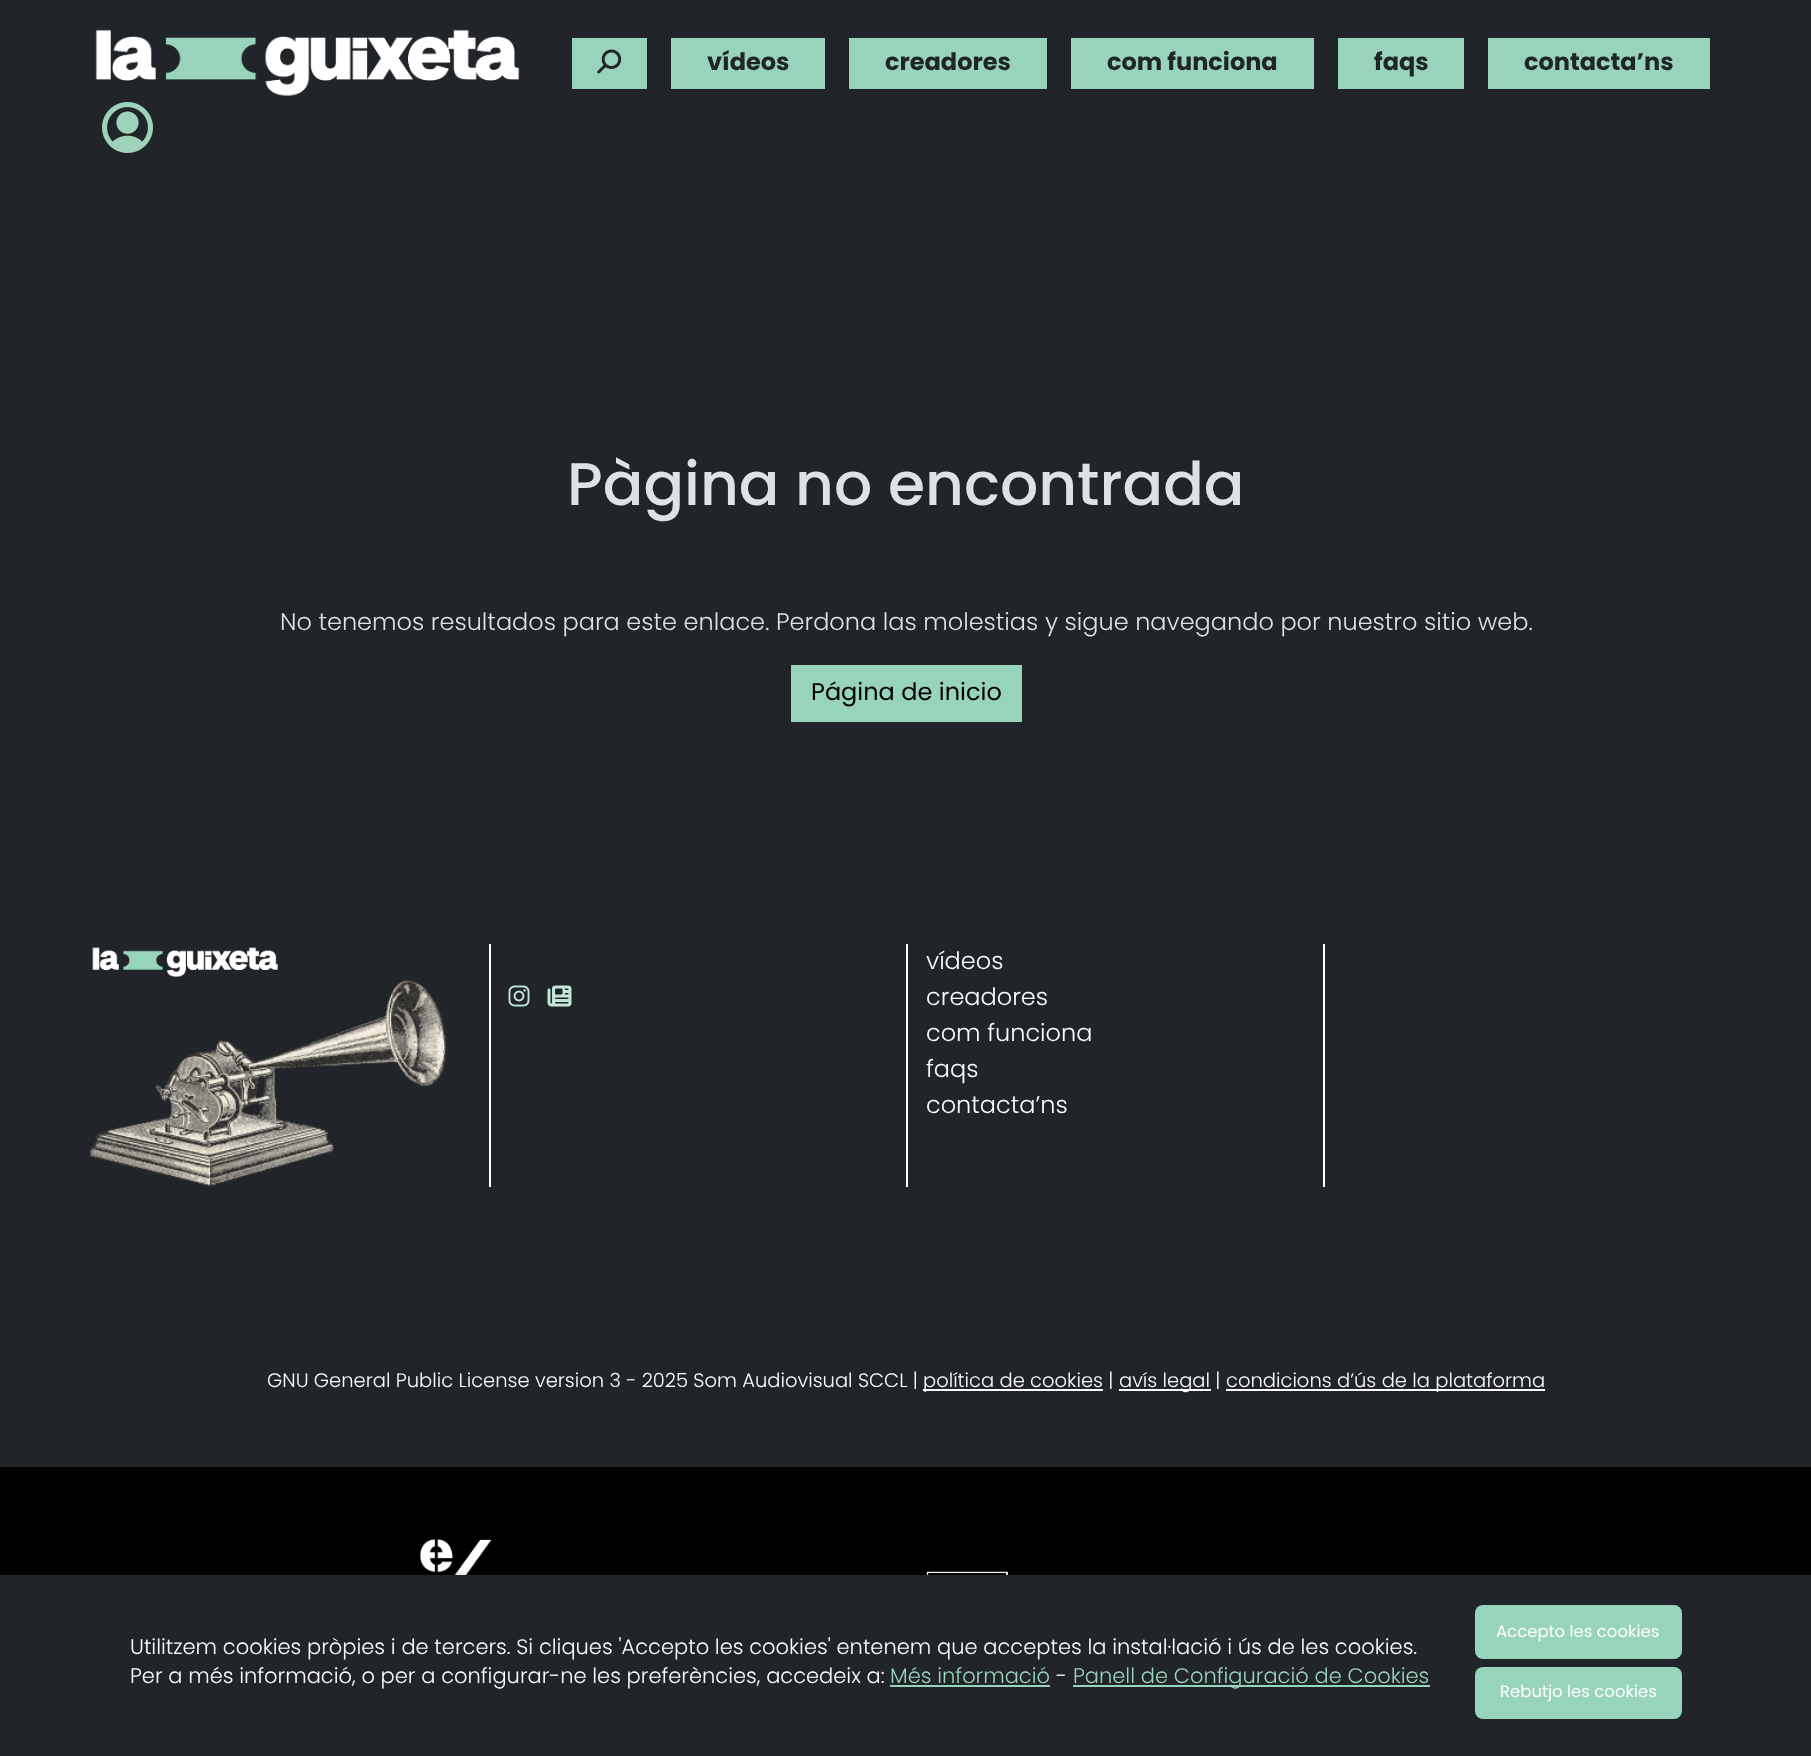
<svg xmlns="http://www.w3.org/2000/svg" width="1811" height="1756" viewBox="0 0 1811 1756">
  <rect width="100%" height="100%" fill="#212529"/>
  <image x="95" y="29" width="425" height="67" href="img/1.png"/>
  <path d="M572 38h75v51H572z" fill="#98d3bb"/>
  <image x="597" y="49" width="25" height="25" href="img/2.png"/>
  <path d="M671 38h154v51H671z" fill="#98d3bb"/>
  <path d="M849 38h198v51H849z" fill="#98d3bb"/>
  <path d="M1071 38h243v51H1071z" fill="#98d3bb"/>
  <path d="M1338 38h126v51H1338z" fill="#98d3bb"/>
  <path d="M1488 38h222v51H1488z" fill="#98d3bb"/>
  <image x="102" y="102" width="51" height="51" href="img/3.png"/>
  <path d="M791 665h231v57H791z" fill="#98d3bb"/>
  <image x="92" y="947" width="186" height="30" href="img/4.png"/>
  <image x="90" y="980" width="357" height="207" href="img/5.png"/>
  <path d="M489 944h2v243H489z" fill="#fff"/>
  <image x="508" y="985" width="22" height="22" href="img/6.png"/>
  <image x="547" y="985" width="25" height="22" href="img/7.png"/>
  <path d="M906 944h2v243H906z" fill="#fff"/>
  <path d="M1323 944h2v243H1323z" fill="#fff"/>
  <path d="M923 1389h180v2H923z" fill="#fff"/>
  <path d="M1119 1389h92v2H1119z" fill="#fff"/>
  <path d="M1226 1389h319v2H1226z" fill="#fff"/>
  <path d="M0 1467h1811v108H0z" fill="#000"/>
  <image x="420" y="1539" width="72" height="36" href="img/8.png"/>
  <image x="926" y="1571" width="82" height="4" href="img/9.png"/>
  <path d="M0 1577h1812v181H0z" fill="#0000004d" filter="blur(5px)"/>
  <path d="M0 1575h1811v181H0z" fill="#212529"/>
  <path d="M890 1685h160v2H890z" fill="#98d3bb"/>
  <path d="M1073 1685h357v2H1073z" fill="#98d3bb"/>
  <rect x="1475" y="1605" width="207" height="54" rx="8" fill="#98d3bb"/>
  <rect x="1475" y="1667" width="207" height="52" rx="8" fill="#98d3bb"/>
  <g font-family="Poppins" font-size="24" font-weight="bold" fill="#212529">
    <text x="707" y="70">vídeos</text>
    <text x="885" y="70">creadores</text>
    <text x="1107" y="70">com funciona</text>
    <text x="1374" y="70">faqs</text>
    <text x="1524" y="70">contacta’ns</text>
  </g>
  <text x="567" y="505" font-family="Poppins" font-size="60" font-weight="500" fill="#dee2e6">Pàgina no encontrada</text>
  <text x="280" y="630" font-family="Poppins" font-size="24" font-weight="300" fill="#dee2e6">No tenemos resultados para este enlace. Perdona las molestias y sigue navegando por nuestro sitio web.</text>
  <text x="811" y="700" font-family="Poppins" font-size="24" fill="#000">Página de inicio</text>
  <g font-family="Poppins" font-size="24" font-weight="300" fill="#fff">
    <text x="926" y="969">vídeos</text>
    <text x="926" y="1005">creadores</text>
    <text x="926" y="1041">com funciona</text>
    <text x="926" y="1077">faqs</text>
    <text x="926" y="1113">contacta’ns</text>
  </g>
  <g font-family="Poppins" font-size="19.5" font-weight="300" fill="#fff">
    <text x="267" y="1387">GNU General Public License version 3 - 2025 Som Audiovisual SCCL |</text>
    <text x="923" y="1387">política de cookies |</text>
    <text x="1119" y="1387">avís legal |</text>
    <text x="1226" y="1387">condicions d’ús de la plataforma</text>
  </g>
  <g font-family="Poppins" font-size="21" font-weight="300" fill="#fff">
    <text x="130" y="1654">Utilitzem cookies pròpies i de tercers. Si cliques 'Accepto les cookies' entenem que acceptes la instal·lació i ús de les cookies.</text>
    <text x="130" y="1683">Per a més informació, o per a configurar-ne les preferències, accedeix a:</text>
  </g>
  <text x="890" y="1683" font-family="Poppins" font-size="21" font-weight="300" fill="#98d3bb">Més informació</text>
  <text x="1056" y="1683" font-family="Poppins" font-size="21" font-weight="300" fill="#fff">-</text>
  <text x="1073" y="1683" font-family="Poppins" font-size="21" font-weight="300" fill="#98d3bb">Panell de Configuració de Cookies</text>
  <g font-family="Poppins" font-size="16.5" fill="#fff">
    <text x="1496" y="1637">Accepto les cookies</text>
    <text x="1500" y="1697">Rebutjo les cookies</text>
  </g>
</svg>
